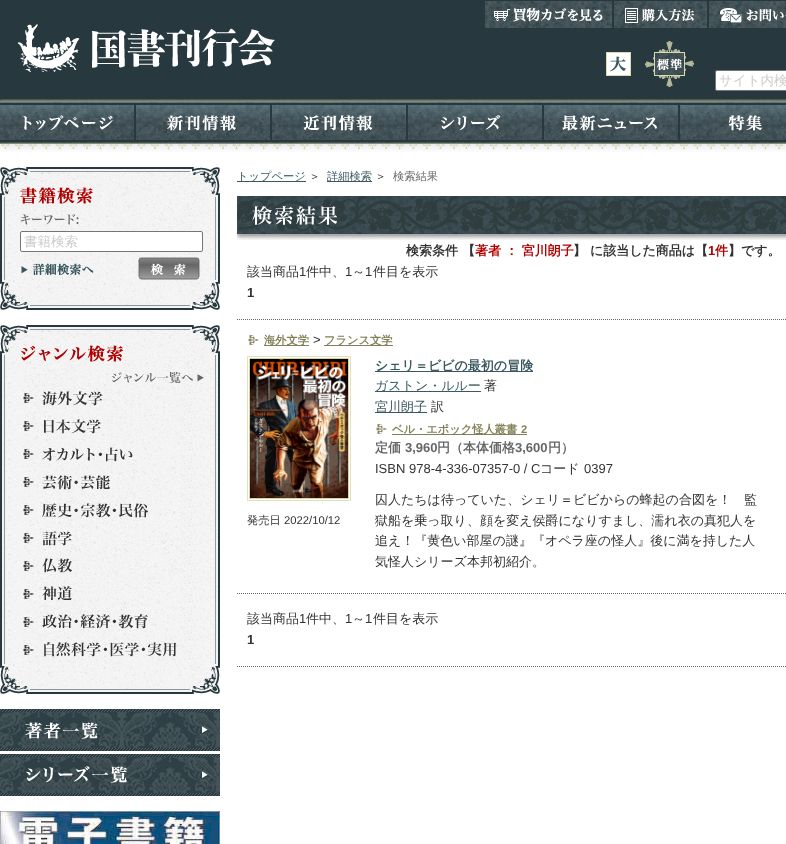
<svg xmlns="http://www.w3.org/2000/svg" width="786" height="844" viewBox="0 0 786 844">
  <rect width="100%" height="100%" fill="#fff"/>
  <path d="M0 0h786v99H0z" fill="#27393f"/>
  <image x="18" y="24" width="257" height="48" href="img/1.png"/>
  <image x="485" y="1" width="127" height="27" href="img/2.png"/>
  <image x="614" y="1" width="93" height="27" href="img/3.png"/>
  <image x="709" y="1" width="77" height="27" href="img/4.png"/>
  <image x="606" y="52" width="25" height="24" href="img/5.png"/>
  <image x="645" y="41" width="49" height="46" href="img/6.png"/>
  <rect x="715.5" y="70.5" width="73" height="20" rx="1.5" fill="#fff" stroke="#767676"/>
  <image x="0" y="99" width="135" height="45" href="img/7.png"/>
  <image x="135" y="99" width="136" height="45" href="img/8.png"/>
  <image x="271" y="99" width="136" height="45" href="img/9.png"/>
  <image x="407" y="99" width="136" height="45" href="img/10.png"/>
  <image x="543" y="99" width="136" height="45" href="img/11.png"/>
  <image x="679" y="99" width="107" height="45" href="img/12.png"/>
  <image x="0" y="144" width="786" height="8" href="img/13.png"/>
  <image x="0" y="167" width="220" height="40" href="img/14.png"/>
  <image x="18" y="185" width="77" height="21" href="img/15.png"/>
  <image x="0" y="207" width="220" height="73" href="img/16.png"/>
  <image x="20" y="212" width="61" height="14" href="img/17.png"/>
  <rect x="20.5" y="231.5" width="182" height="20" rx="1.5" fill="#fff" stroke="#767676"/>
  <image x="138" y="257" width="62" height="23" href="img/18.png"/>
  <image x="21" y="262" width="74" height="14" href="img/19.png"/>
  <image x="0" y="280" width="220" height="30" href="img/20.png"/>
  <image x="0" y="325" width="220" height="40" href="img/14.png"/>
  <image x="18" y="343" width="107" height="21" href="img/21.png"/>
  <image x="0" y="365" width="220" height="299" href="img/22.png"/>
  <image x="111" y="370" width="94" height="14" href="img/23.png"/>
  <image x="23" y="384" width="156" height="28" href="img/24.png"/>
  <image x="23" y="412" width="156" height="28" href="img/25.png"/>
  <image x="23" y="440" width="156" height="28" href="img/26.png"/>
  <image x="23" y="468" width="156" height="28" href="img/27.png"/>
  <image x="23" y="496" width="156" height="28" href="img/28.png"/>
  <image x="23" y="524" width="156" height="28" href="img/29.png"/>
  <image x="23" y="552" width="156" height="28" href="img/30.png"/>
  <image x="23" y="580" width="156" height="28" href="img/31.png"/>
  <image x="23" y="608" width="156" height="28" href="img/32.png"/>
  <image x="23" y="636" width="156" height="28" href="img/33.png"/>
  <image x="0" y="664" width="220" height="30" href="img/20.png"/>
  <image x="0" y="709" width="220" height="42" href="img/34.png"/>
  <image x="0" y="754" width="220" height="42" href="img/35.png"/>
  <image x="0" y="811" width="220" height="33" href="img/36.png"/>
  <path d="M237 181h69v1H237z" fill="#3b575f"/>
  <path d="M327 181h45v1H327z" fill="#3b575f"/>
  <image x="237" y="196" width="549" height="44" href="img/37.png"/>
  <image x="252" y="206" width="85" height="19" href="img/38.png"/>
  <path d="M237 319.5H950" fill="none" stroke="#666" stroke-dasharray="1 1"/>
  <path d="M237 593.5H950" fill="none" stroke="#666" stroke-dasharray="1 1"/>
  <image x="248" y="335" width="11" height="10" href="img/39.png"/>
  <path d="M264 345h45v1H264z" fill="#818058"/>
  <path d="M324 345h69v1H324z" fill="#818058"/>
  <path d="M247.5 356.5h103v144H247.5z" fill="none" stroke="#e1e1bf"/>
  <path d="M249.5 358.5h99v140H249.5z" fill="none" stroke="#d5d5a2"/>
  <image x="250" y="359" width="98" height="139" href="img/40.png"/>
  <path d="M375 371h158v1H375z" fill="#3b575f"/>
  <path d="M375 391h106v1H375z" fill="#3b575f"/>
  <path d="M375 412h52v1H375z" fill="#3b575f"/>
  <image x="376" y="424" width="11" height="10" href="img/39.png"/>
  <path d="M392 434h135v1H392z" fill="#818058"/>
  <path d="M237 666.5H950" fill="none" stroke="#666" stroke-dasharray="1 1"/>
  <g font-family="WenQuanYi Zen Hei" font-size="13.5" font-weight="500" fill="#ccc">
    <text x="719" y="85">サイト内検</text>
    <text x="24" y="246">書籍検索</text>
  </g>
  <text x="237" y="180" font-family="WenQuanYi Zen Hei" font-size="11.25" font-weight="500" fill="#3b575f">トップページ</text>
  <text x="309" y="180" font-family="WenQuanYi Zen Hei" font-size="11.25" font-weight="500" fill="#333">＞</text>
  <text x="327" y="180" font-family="WenQuanYi Zen Hei" font-size="11.25" font-weight="500" fill="#3b575f">詳細検索</text>
  <text x="375" y="180" font-family="WenQuanYi Zen Hei" font-size="11.25" font-weight="500" fill="#333">＞</text>
  <text x="393" y="180" font-family="WenQuanYi Zen Hei" font-size="11.25" font-weight="500" fill="#666">検索結果</text>
  <text x="406" y="255" font-family="WenQuanYi Zen Hei" font-size="13" font-weight="bold" fill="#333">検索条件 【</text>
  <text x="475" y="255" font-family="WenQuanYi Zen Hei" font-size="13" font-weight="bold" fill="#b00000">著者 ： 宮川朗子</text>
  <text x="573" y="255" font-family="WenQuanYi Zen Hei" font-size="13" font-weight="bold" fill="#333">】 に該当した商品は【</text>
  <text x="708" y="255" font-family="Liberation Sans" font-size="13" font-weight="bold" fill="#b00000">1</text>
  <text x="715" y="255" font-family="WenQuanYi Zen Hei" font-size="13" font-weight="bold" fill="#b00000">件</text>
  <text x="728" y="255" font-family="WenQuanYi Zen Hei" font-size="13" font-weight="bold" fill="#333">】です。</text>
  <text x="247" y="276" font-family="WenQuanYi Zen Hei" font-size="13" font-weight="500" fill="#333">該当商品</text>
  <text x="299" y="276" font-family="Liberation Sans" font-size="13" fill="#333">1</text>
  <text x="306" y="276" font-family="WenQuanYi Zen Hei" font-size="13" font-weight="500" fill="#333">件中、</text>
  <text x="345" y="276" font-family="Liberation Sans" font-size="13" fill="#333">1</text>
  <text x="352" y="276" font-family="WenQuanYi Zen Hei" font-size="13" font-weight="500" fill="#333">～</text>
  <text x="365" y="276" font-family="Liberation Sans" font-size="13" fill="#333">1</text>
  <text x="373" y="276" font-family="WenQuanYi Zen Hei" font-size="13" font-weight="500" fill="#333">件目を表示</text>
  <text x="247" y="297" font-family="Liberation Sans" font-size="13" font-weight="bold" fill="#333">1</text>
  <text x="264" y="344" font-family="WenQuanYi Zen Hei" font-size="11.25" font-weight="bold" fill="#818058">海外文学</text>
  <text x="313" y="344" font-family="Liberation Sans" font-size="13" fill="#333">&gt;</text>
  <text x="324" y="344" font-family="WenQuanYi Zen Hei" font-size="11.25" font-weight="bold" fill="#818058">フランス文学</text>
  <text x="247" y="524" font-family="WenQuanYi Zen Hei" font-size="11.25" font-weight="500" fill="#333">発売日</text>
  <text x="284" y="524" font-family="Liberation Sans" font-size="11.25" fill="#333">2022/10/12</text>
  <text x="375" y="370" font-family="WenQuanYi Zen Hei" font-size="13" font-weight="bold" fill="#3b575f">シェリ＝ビビの最初の冒険</text>
  <text x="375" y="390" font-family="WenQuanYi Zen Hei" font-size="13" font-weight="500" fill="#3b575f">ガストン・ルルー</text>
  <text x="484" y="390" font-family="WenQuanYi Zen Hei" font-size="13" font-weight="500" fill="#333">著</text>
  <text x="375" y="411" font-family="WenQuanYi Zen Hei" font-size="13" font-weight="500" fill="#3b575f">宮川朗子</text>
  <text x="431" y="411" font-family="WenQuanYi Zen Hei" font-size="13" font-weight="500" fill="#333">訳</text>
  <text x="392" y="433" font-family="WenQuanYi Zen Hei" font-size="11.25" font-weight="bold" fill="#818058">ベル・エポック怪人叢書</text>
  <text x="521" y="433" font-family="Liberation Sans" font-size="11.25" font-weight="bold" fill="#818058">2</text>
  <text x="375" y="452" font-family="WenQuanYi Zen Hei" font-size="13" font-weight="bold" fill="#666">定価</text>
  <text x="405" y="452" font-family="Liberation Sans" font-size="13" font-weight="bold" fill="#666">3,960</text>
  <text x="437" y="452" font-family="WenQuanYi Zen Hei" font-size="13" font-weight="bold" fill="#666">円（本体価格</text>
  <text x="515" y="452" font-family="Liberation Sans" font-size="13" font-weight="bold" fill="#666">3,600</text>
  <text x="548" y="452" font-family="WenQuanYi Zen Hei" font-size="13" font-weight="bold" fill="#666">円）</text>
  <text x="375" y="473" font-family="Liberation Sans" font-size="13" fill="#333">ISBN 978-4-336-07357-0 / C</text>
  <text x="540" y="473" font-family="WenQuanYi Zen Hei" font-size="13" font-weight="500" fill="#333">コード</text>
  <text x="584" y="473" font-family="Liberation Sans" font-size="13" fill="#333">0397</text>
  <g font-family="WenQuanYi Zen Hei" font-size="13" font-weight="500" fill="#333">
    <text x="375" y="504">囚人たちは待っていた、シェリ＝ビビからの蜂起の合図を！　監</text>
    <text x="375" y="525">獄船を乗っ取り、顔を変え侯爵になりすまし、濡れ衣の真犯人を</text>
    <text x="375" y="545">追え！『黄色い部屋の謎』『オペラ座の怪人』後に満を持した人</text>
    <text x="375" y="566">気怪人シリーズ本邦初紹介。</text>
    <text x="247" y="623">該当商品</text>
  </g>
  <text x="299" y="623" font-family="Liberation Sans" font-size="13" fill="#333">1</text>
  <text x="306" y="623" font-family="WenQuanYi Zen Hei" font-size="13" font-weight="500" fill="#333">件中、</text>
  <text x="345" y="623" font-family="Liberation Sans" font-size="13" fill="#333">1</text>
  <text x="352" y="623" font-family="WenQuanYi Zen Hei" font-size="13" font-weight="500" fill="#333">～</text>
  <text x="365" y="623" font-family="Liberation Sans" font-size="13" fill="#333">1</text>
  <text x="373" y="623" font-family="WenQuanYi Zen Hei" font-size="13" font-weight="500" fill="#333">件目を表示</text>
  <text x="247" y="644" font-family="Liberation Sans" font-size="13" font-weight="bold" fill="#333">1</text>
</svg>
